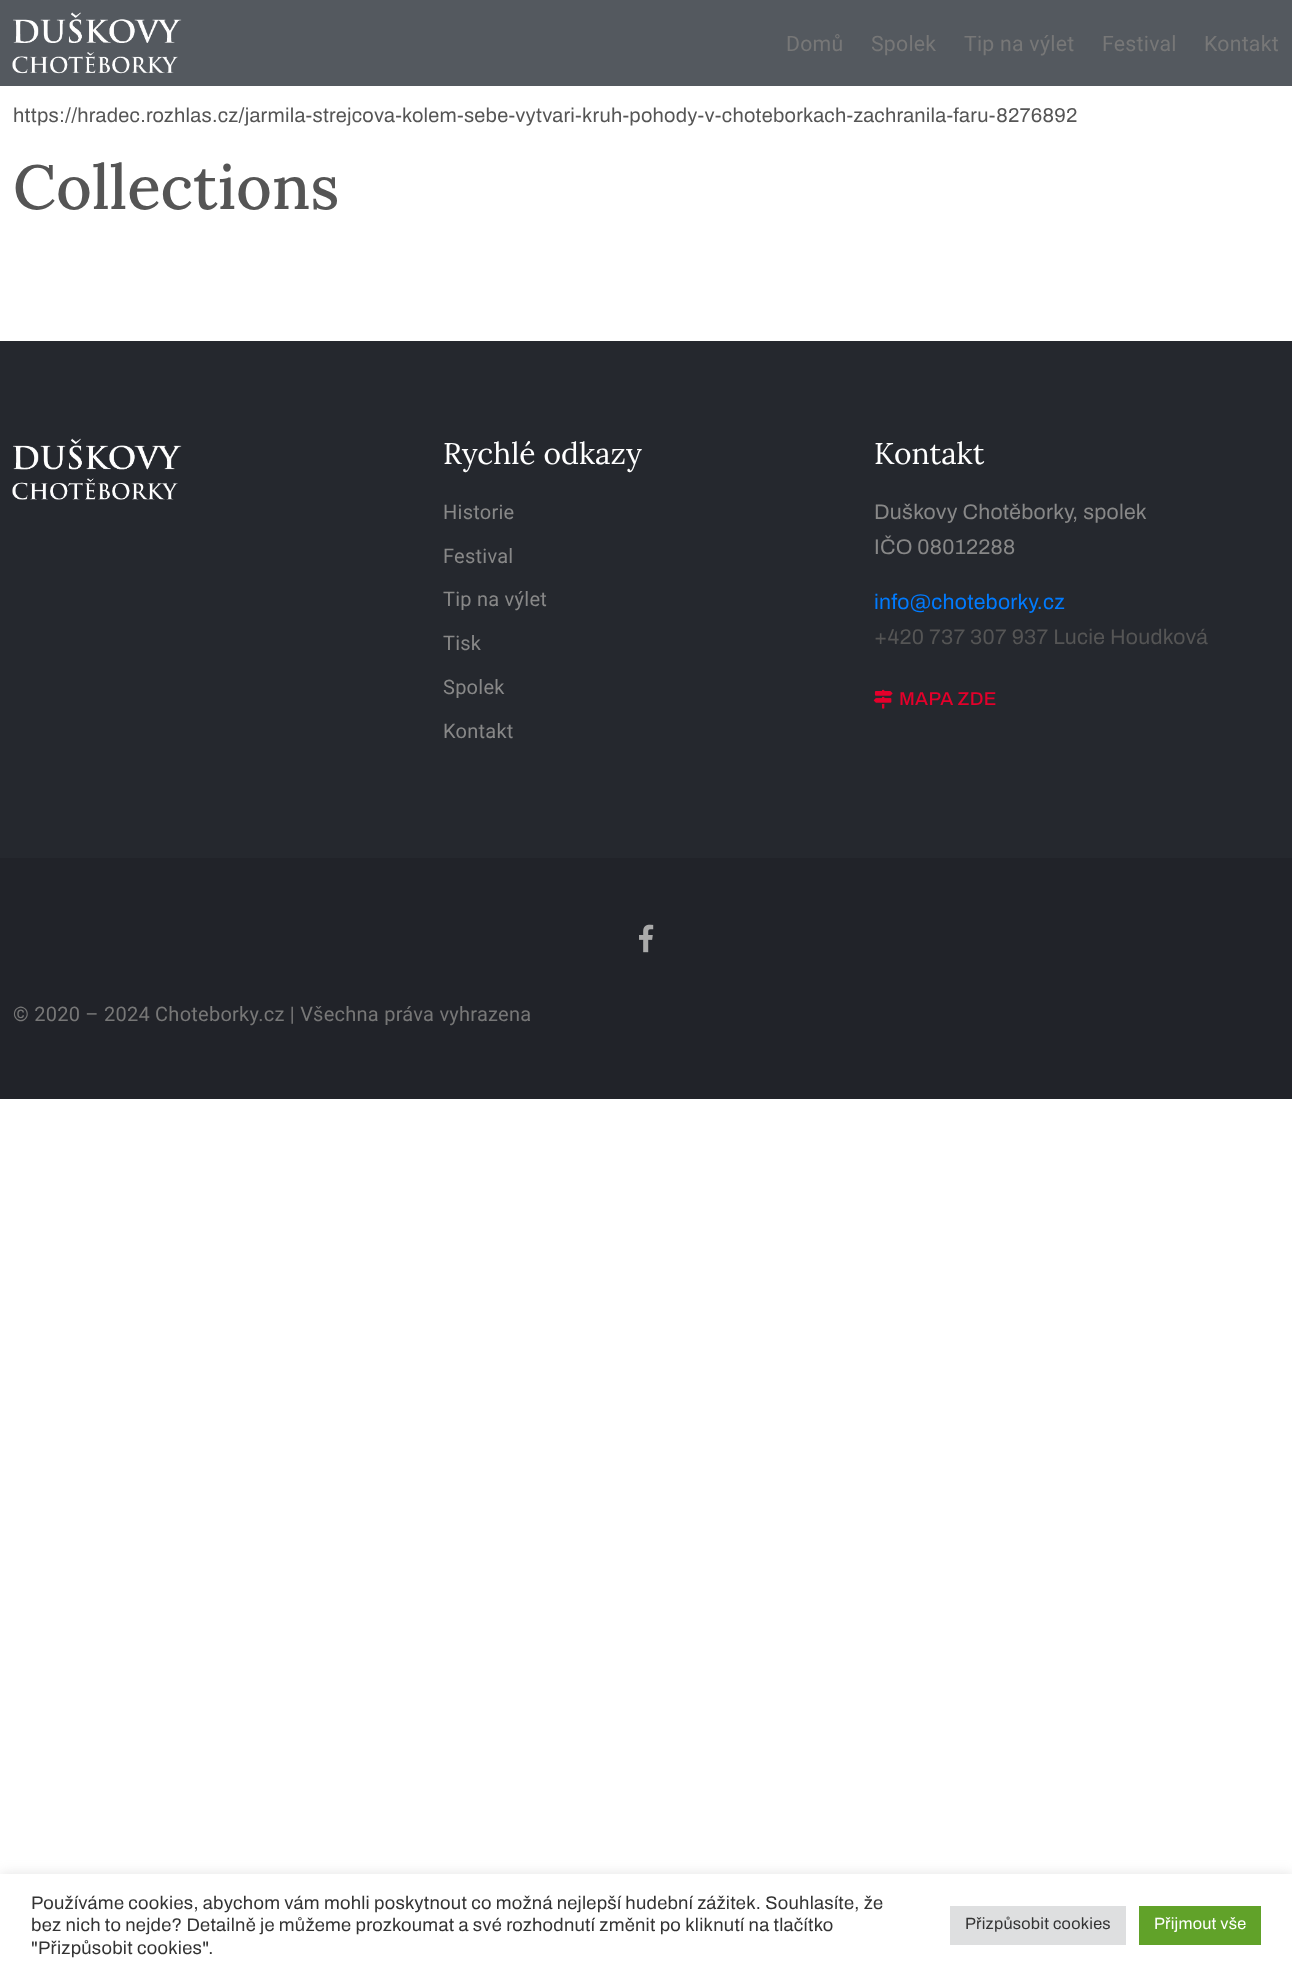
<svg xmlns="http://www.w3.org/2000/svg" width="1292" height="1976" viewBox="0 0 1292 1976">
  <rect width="100%" height="100%" fill="#fff"/>
  <path d="M0 0h1292v86H0z" fill="#54595f"/>
  <image x="12" y="12" width="170" height="62" href="img/1.png"/>
  <path d="M0 341h1292v517H0z" fill="#25282e"/>
  <image x="12" y="438" width="170" height="62" href="img/2.png"/>
  <image x="873" y="689" width="20" height="20" href="img/3.png"/>
  <path d="M0 858h1292v241H0z" fill="#212329"/>
  <image x="639" y="924" width="15" height="29" href="img/4.png"/>
  <path d="M0 1873h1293v102H0z" fill="#acabab4d" filter="blur(6px)"/>
  <path d="M0 1874h1292v102H0z" fill="#fff"/>
  <path d="M950 1906h176v39H950z" fill="#dedfe0"/>
  <path d="M1139 1906h122v39H1139z" fill="#61a229"/>
  <g font-family="Roboto" font-size="21.25" letter-spacing="0.25" fill="#777">
    <text x="786" y="51">Domů</text>
    <text x="871" y="51">Spolek</text>
    <text x="964" y="51">Tip na výlet</text>
    <text x="1102" y="51">Festival</text>
    <text x="1204" y="51">Kontakt</text>
  </g>
  <text x="13" y="122" font-family="Archivo" font-size="20" letter-spacing="0.25" fill="#555">https://hradec.rozhlas.cz/jarmila-strejcova-kolem-sebe-vytvari-kruh-pohody-v-choteborkach-zachranila-faru-8276892</text>
  <text x="13" y="209" font-family="Lora" font-size="62" font-weight="500" fill="#555">Collections</text>
  <text x="443" y="464" font-family="Lora" font-size="30" fill="#fff">Rychlé odkazy</text>
  <g font-family="Roboto" font-size="20" letter-spacing="0.25" fill="#888">
    <text x="443" y="519">Historie</text>
    <text x="443" y="563">Festival</text>
    <text x="443" y="606">Tip na výlet</text>
    <text x="443" y="650">Tisk</text>
    <text x="443" y="694">Spolek</text>
    <text x="443" y="738">Kontakt</text>
  </g>
  <text x="874" y="464" font-family="Lora" font-size="30" fill="#fff">Kontakt</text>
  <g font-family="Archivo" font-size="21.25" letter-spacing="0.25" fill="#888">
    <text x="874" y="519">Duškovy Chotěborky, spolek</text>
    <text x="874" y="554">IČO 08012288</text>
  </g>
  <text x="874" y="609" font-family="Archivo" font-size="21.25" letter-spacing="0.25" fill="#007bff">info@choteborky.cz</text>
  <text x="874" y="644" font-family="Archivo" font-size="21.25" letter-spacing="0.25" fill="#555">+420 737 307 937 Lucie Houdková</text>
  <text x="899" y="705" font-family="Archivo" font-size="18.75" font-weight="500" letter-spacing="0.25" fill="#e4002b">MAPA ZDE</text>
  <text x="13" y="1021" font-family="Roboto" font-size="20" letter-spacing="0.25" fill="#777">© 2020 – 2024 Choteborky.cz | Všechna práva vyhrazena</text>
  <g font-family="Archivo" font-size="18.35" letter-spacing="0.25" fill="#333">
    <text x="31" y="1909">Používáme cookies, abychom vám mohli poskytnout co možná nejlepší hudební zážitek. Souhlasíte, že</text>
    <text x="31" y="1931">bez nich to nejde? Detailně je můžeme prozkoumat a své rozhodnutí změnit po kliknutí na tlačítko</text>
    <text x="31" y="1954">"Přizpůsobit cookies".</text>
  </g>
  <text x="965" y="1929" font-family="Archivo" font-size="16.25" letter-spacing="0.25" fill="#333">Přizpůsobit cookies</text>
  <text x="1154" y="1929" font-family="Archivo" font-size="16.25" letter-spacing="0.25" fill="#fff">Přijmout vše</text>
</svg>
